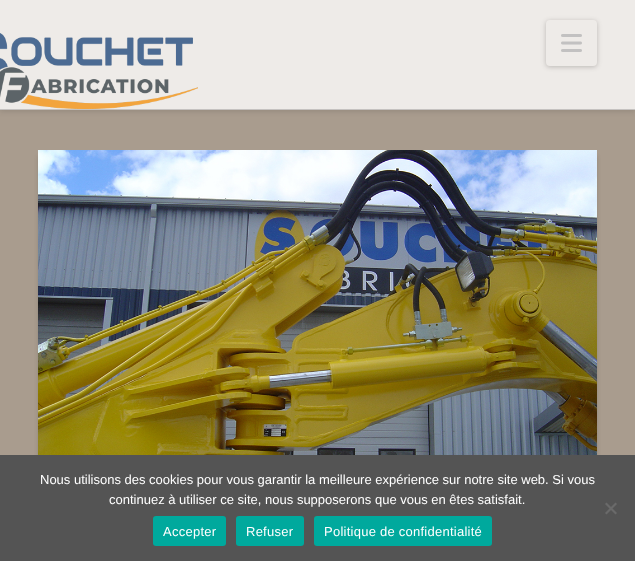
<svg xmlns="http://www.w3.org/2000/svg" width="635" height="561" viewBox="0 0 635 561">
  <rect width="100%" height="100%" fill="#a99c8e"/>
  <path d="M0 2h635v110H0z" fill="#221f1c21" filter="blur(2.5px)"/>
  <path d="M0 0h635v109H0z" fill="#eeebe8"/>
  <path d="M0 109h635v1H0z" fill="#c5c2c0"/>
  <image x="0" y="33" width="198" height="76" href="img/1.png"/>
  <rect x="546" y="21" width="51" height="46" rx="4" fill="#221f1c40" filter="blur(2.5px)"/>
  <rect x="546" y="20" width="51" height="46" rx="4" fill="#eeebe8"/>
  <image x="561" y="34" width="21" height="18" href="img/2.png"/>
  <path d="M38 156h551v329H38z" fill="#00000021" filter="blur(2px)"/>
  <path d="M46 156h551v329H46z" fill="#00000021" filter="blur(2px)"/>
  <image x="38" y="150" width="559" height="305" href="img/3.png"/>
  <path d="M0 455h635v106H0z" fill="#545454"/>
  <path d="M615.5 502.5L617 504L606.5 514.5L605 513Z" fill="#6a6a6a"/>
  <path d="M605 504L606.5 502.5L617 513L615.5 514.5Z" fill="#6a6a6a"/>
  <rect x="153" y="516" width="73" height="30" rx="3" fill="#00a99d"/>
  <rect x="236" y="516" width="68" height="30" rx="3" fill="#00a99d"/>
  <rect x="314" y="516" width="178" height="30" rx="3" fill="#00a99d"/>
  <g font-family="Liberation Sans" font-size="13" fill="#fff">
    <text x="40" y="484">Nous utilisons des cookies pour vous garantir la meilleure expérience sur notre site web. Si vous</text>
    <text x="109" y="504">continuez à utiliser ce site, nous supposerons que vous en êtes satisfait.</text>
  </g>
  <g font-family="Liberation Sans" font-size="13" letter-spacing="0.25" fill="#fff">
    <text x="163" y="536">Accepter</text>
    <text x="246" y="536">Refuser</text>
    <text x="324" y="536">Politique de confidentialité</text>
  </g>
</svg>
